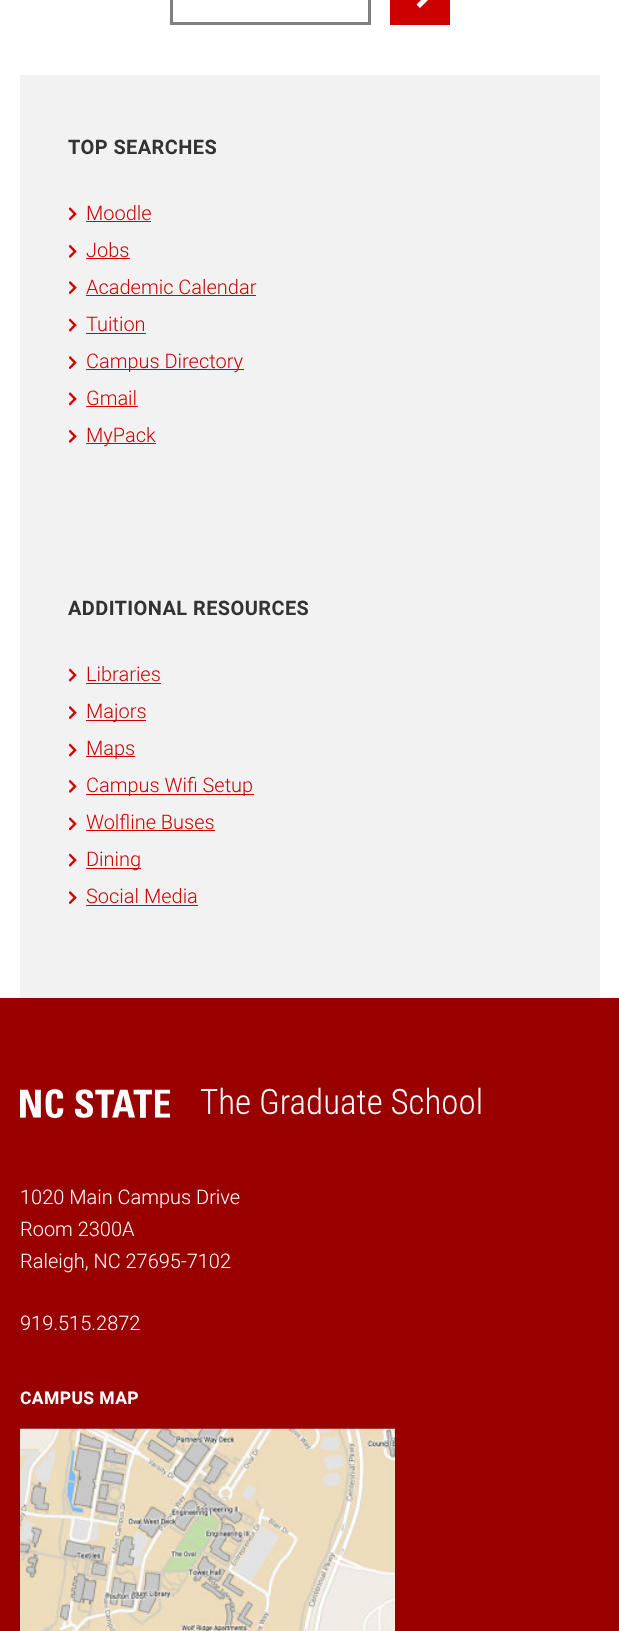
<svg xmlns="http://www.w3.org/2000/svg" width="619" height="1631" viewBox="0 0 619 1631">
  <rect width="100%" height="100%" fill="#fff"/>
  <path d="M171.5 -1.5h198v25H171.5z" fill="none" stroke="#808080" stroke-width="3"/>
  <path d="M390 0h60v25H390z" fill="#c00"/>
  <path d="M407-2.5H423.5L416.5 4.5L420 8L433-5L420-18L416.5-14.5L423.5-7.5H407Z" fill="#fff"/>
  <path d="M20 75h580v923H20z" fill="#f2f2f2"/>
  <image x="69" y="207" width="8" height="14" href="img/1.png"/>
  <path d="M86 221h65v1H86z" fill="#c00"/>
  <image x="69" y="244" width="8" height="14" href="img/2.png"/>
  <path d="M86 258h44v1H86z" fill="#c00"/>
  <image x="69" y="281" width="8" height="14" href="img/3.png"/>
  <path d="M86 295h170v1H86z" fill="#c00"/>
  <image x="69" y="318" width="8" height="14" href="img/4.png"/>
  <path d="M86 333h60v1H86z" fill="#c00"/>
  <image x="69" y="356" width="8" height="14" href="img/3.png"/>
  <path d="M86 369h158v1H86z" fill="#c00"/>
  <image x="69" y="392" width="8" height="14" href="img/1.png"/>
  <path d="M86 406h52v1H86z" fill="#c00"/>
  <image x="69" y="429" width="8" height="14" href="img/2.png"/>
  <path d="M86 443h70v1H86z" fill="#c00"/>
  <image x="69" y="668" width="8" height="14" href="img/4.png"/>
  <path d="M86 683h75v1H86z" fill="#c00"/>
  <image x="69" y="706" width="8" height="14" href="img/3.png"/>
  <path d="M86 720h60v1H86z" fill="#c00"/>
  <image x="69" y="743" width="8" height="14" href="img/4.png"/>
  <path d="M86 756h49v1H86z" fill="#c00"/>
  <image x="69" y="779" width="8" height="14" href="img/2.png"/>
  <path d="M86 794h168v1H86z" fill="#c00"/>
  <image x="69" y="817" width="8" height="14" href="img/1.png"/>
  <path d="M86 830h129v1H86z" fill="#c00"/>
  <image x="69" y="853" width="8" height="14" href="img/4.png"/>
  <path d="M86 868h55v1H86z" fill="#c00"/>
  <image x="69" y="891" width="8" height="14" href="img/3.png"/>
  <path d="M86 905h112v1H86z" fill="#c00"/>
  <path d="M0 998h619v633H0z" fill="#900"/>
  <image x="20" y="1089" width="150" height="30" href="img/5.png"/>
  <image x="20" y="1428" width="375" height="203" href="img/6.png"/>
  <text x="68" y="154" font-family="Roboto" font-size="20" font-weight="bold" letter-spacing="0.4" fill="#333">TOP SEARCHES</text>
  <g font-family="Roboto" font-size="20" font-weight="300" fill="#c00">
    <text x="86" y="220">Moodle</text>
    <text x="86" y="257">Jobs</text>
    <text x="86" y="294">Academic Calendar</text>
    <text x="86" y="331">Tuition</text>
    <text x="86" y="368">Campus Directory</text>
    <text x="86" y="405">Gmail</text>
    <text x="86" y="442">MyPack</text>
  </g>
  <text x="68" y="615" font-family="Roboto" font-size="20" font-weight="bold" letter-spacing="0.4" fill="#333">ADDITIONAL RESOURCES</text>
  <g font-family="Roboto" font-size="20" font-weight="300" fill="#c00">
    <text x="86" y="681">Libraries</text>
    <text x="86" y="718">Majors</text>
    <text x="86" y="755">Maps</text>
    <text x="86" y="792">Campus Wifi Setup</text>
    <text x="86" y="829">Wolfline Buses</text>
    <text x="86" y="866">Dining</text>
    <text x="86" y="903">Social Media</text>
  </g>
  <text x="200" y="1114" font-family="Roboto Condensed" font-size="35" font-weight="300" fill="#fff">The Graduate School</text>
  <g font-family="Roboto" font-size="20" font-weight="300" fill="#fff">
    <text x="20" y="1204">1020 Main Campus Drive</text>
    <text x="20" y="1236">Room 2300A</text>
    <text x="20" y="1268">Raleigh, NC 27695-7102</text>
    <text x="20" y="1330">919.515.2872</text>
  </g>
  <text x="20" y="1404" font-family="Roboto" font-size="17.5" font-weight="bold" letter-spacing="0.4" fill="#fff">CAMPUS MAP</text>
</svg>
